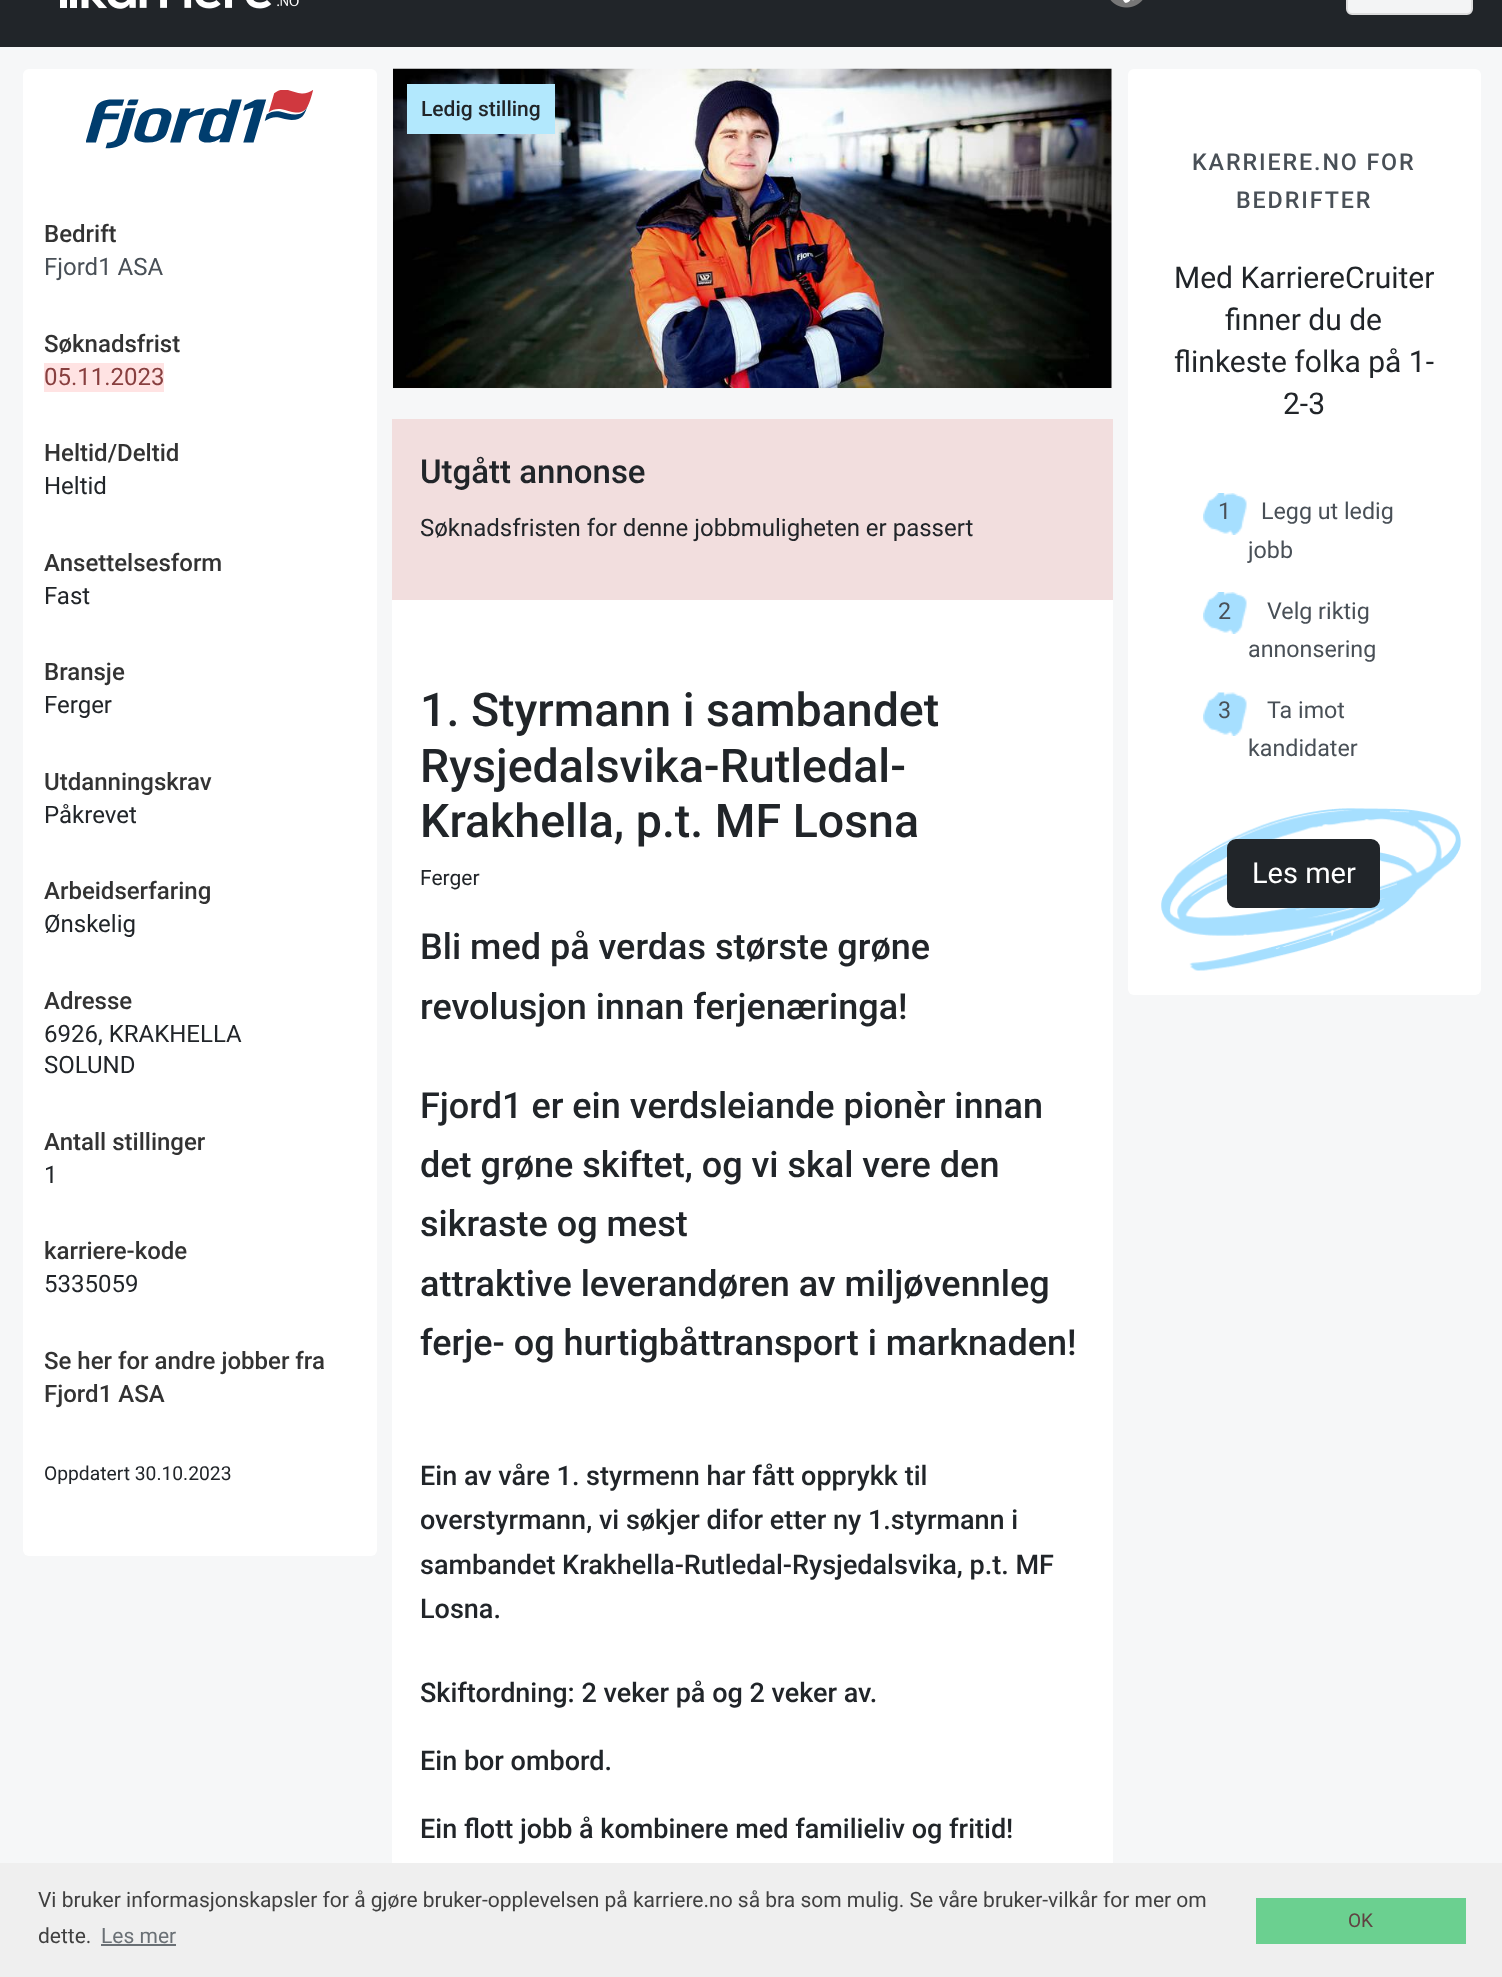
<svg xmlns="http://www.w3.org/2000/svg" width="1502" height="1977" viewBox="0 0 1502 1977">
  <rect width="100%" height="100%" fill="#f6f7f8"/>
  <path d="M0 0h1502v47H0z" fill="#212529"/>
  <image x="60" y="0" width="239" height="9" href="img/1.png"/>
  <image x="1110" y="0" width="33" height="8" href="img/2.png"/>
  <rect x="1347" y="-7" width="125" height="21" rx="5" fill="#f3f4f5" stroke="#ddd" stroke-width="2"/>
  <rect x="23" y="69" width="354" height="1487" rx="6" fill="#fff"/>
  <image x="86" y="90" width="228" height="59" href="img/3.png"/>
  <path d="M44 363h120v29H44z" fill="#ffe3e3"/>
  <path d="M392 69h721v320H392z" fill="#f5f5f5"/>
  <image x="393" y="68" width="719" height="320" href="img/4.png"/>
  <path d="M407 84h148v50H407z" fill="#b2e8fd"/>
  <path d="M392 600h721v1263H392z" fill="#fff"/>
  <path d="M392 419h721v181H392z" fill="#f2dede"/>
  <rect x="1128" y="69" width="353" height="926" rx="6" fill="#fff"/>
  <image x="1203" y="493" width="44" height="42" href="img/5.png"/>
  <image x="1203" y="592" width="44" height="42" href="img/5.png"/>
  <image x="1203" y="692" width="44" height="44" href="img/6.png"/>
  <image x="1161" y="808" width="300" height="163" href="img/7.png"/>
  <rect x="1228" y="840" width="151" height="67" rx="8" fill="#212529" stroke="#212529" stroke-width="2"/>
  <path d="M0 1863h1502v114H0z" fill="#efefef"/>
  <path d="M101 1944h75v2H101z" fill="#6a7075"/>
  <path d="M1256 1898h210v46H1256z" fill="#6bd090"/>
  <text x="44" y="242" font-family="Roboto" font-size="24" font-weight="500" fill="#333">Bedrift</text>
  <text x="44" y="275" font-family="Roboto" font-size="24" fill="#495057">Fjord1 ASA</text>
  <text x="44" y="352" font-family="Roboto" font-size="24" font-weight="500" fill="#333">Søknadsfrist</text>
  <text x="44" y="385" font-family="Roboto" font-size="24" fill="#883f3f">05.11.2023</text>
  <text x="44" y="461" font-family="Roboto" font-size="24" font-weight="500" fill="#333">Heltid/Deltid</text>
  <text x="44" y="494" font-family="Roboto" font-size="24" fill="#212529">Heltid</text>
  <text x="44" y="571" font-family="Roboto" font-size="24" font-weight="500" fill="#333">Ansettelsesform</text>
  <text x="44" y="604" font-family="Roboto" font-size="24" fill="#212529">Fast</text>
  <text x="44" y="680" font-family="Roboto" font-size="24" font-weight="500" fill="#333">Bransje</text>
  <text x="44" y="713" font-family="Roboto" font-size="24" fill="#212529">Ferger</text>
  <text x="44" y="790" font-family="Roboto" font-size="24" font-weight="500" fill="#333">Utdanningskrav</text>
  <text x="44" y="823" font-family="Roboto" font-size="24" fill="#212529">Påkrevet</text>
  <text x="44" y="899" font-family="Roboto" font-size="24" font-weight="500" fill="#333">Arbeidserfaring</text>
  <text x="44" y="932" font-family="Roboto" font-size="24" fill="#212529">Ønskelig</text>
  <text x="44" y="1009" font-family="Roboto" font-size="24" font-weight="500" fill="#333">Adresse</text>
  <g font-family="Roboto" font-size="24" fill="#212529">
    <text x="44" y="1042">6926, KRAKHELLA</text>
    <text x="44" y="1073">SOLUND</text>
  </g>
  <text x="44" y="1150" font-family="Roboto" font-size="24" font-weight="500" fill="#333">Antall stillinger</text>
  <text x="44" y="1183" font-family="Roboto" font-size="24" fill="#212529">1</text>
  <text x="44" y="1259" font-family="Roboto" font-size="24" font-weight="500" fill="#333">karriere-kode</text>
  <text x="44" y="1292" font-family="Roboto" font-size="24" fill="#212529">5335059</text>
  <g font-family="Roboto" font-size="24" font-weight="500" fill="#333">
    <text x="44" y="1369">Se her for andre jobber fra</text>
    <text x="44" y="1402">Fjord1 ASA</text>
  </g>
  <text x="44" y="1480" font-family="Roboto" font-size="19.25" fill="#212529">Oppdatert 30.10.2023</text>
  <text x="421" y="116" font-family="Roboto" font-size="21" font-weight="500" fill="#212529">Ledig stilling</text>
  <text x="420" y="483" font-family="Roboto" font-size="33" font-weight="500" fill="#212529">Utgått annonse</text>
  <text x="420" y="536" font-family="Roboto" font-size="24" fill="#212529">Søknadsfristen for denne jobbmuligheten er passert</text>
  <g font-family="Roboto" font-size="46.5" font-weight="500" fill="#212529">
    <text x="420" y="726">1. Styrmann i sambandet</text>
    <text x="420" y="782">Rysjedalsvika-Rutledal-</text>
    <text x="420" y="837">Krakhella, p.t. MF Losna</text>
  </g>
  <text x="420" y="885" font-family="Roboto" font-size="21" fill="#212529">Ferger</text>
  <g font-family="Roboto" font-size="36" font-weight="500" fill="#212529">
    <text x="420" y="959">Bli med på verdas største grøne</text>
    <text x="420" y="1019">revolusjon innan ferjenæringa!</text>
    <text x="420" y="1118">Fjord1 er ein verdsleiande pionèr innan</text>
    <text x="420" y="1177">det grøne skiftet, og vi skal vere den</text>
    <text x="420" y="1236">sikraste og mest</text>
    <text x="420" y="1296">attraktive leverandøren av miljøvennleg</text>
    <text x="420" y="1355">ferje- og hurtigbåttransport i marknaden!</text>
  </g>
  <g font-family="Roboto" font-size="27" font-weight="500" fill="#212529">
    <text x="420" y="1485">Ein av våre 1. styrmenn har fått opprykk til</text>
    <text x="420" y="1529">overstyrmann, vi søkjer difor etter ny 1.styrmann i</text>
    <text x="420" y="1574">sambandet Krakhella-Rutledal-Rysjedalsvika, p.t. MF</text>
    <text x="420" y="1618">Losna.</text>
    <text x="420" y="1702">Skiftordning: 2 veker på og 2 veker av.</text>
    <text x="420" y="1770">Ein bor ombord.</text>
    <text x="420" y="1838">Ein flott jobb å kombinere med familieliv og fritid!</text>
  </g>
  <g font-family="Roboto" font-size="23.25" font-weight="500" letter-spacing="1.9" fill="#495057">
    <text x="1192" y="170">KARRIERE.NO FOR</text>
    <text x="1236" y="208">BEDRIFTER</text>
  </g>
  <g font-family="Roboto" font-size="30" fill="#212529">
    <text x="1174" y="288">Med KarriereCruiter</text>
    <text x="1225" y="330">finner du de</text>
    <text x="1174" y="372">flinkeste folka på 1-</text>
    <text x="1283" y="414">2-3</text>
  </g>
  <g font-family="Roboto" font-size="23.25" fill="#495057">
    <text x="1218" y="519">1</text>
    <text x="1261" y="519">Legg ut ledig</text>
    <text x="1248" y="558">jobb</text>
    <text x="1218" y="619">2</text>
    <text x="1267" y="619">Velg riktig</text>
    <text x="1248" y="657">annonsering</text>
    <text x="1218" y="718">3</text>
    <text x="1267" y="718">Ta imot</text>
    <text x="1248" y="756">kandidater</text>
  </g>
  <text x="1252" y="883" font-family="Roboto" font-size="29" fill="#fff">Les mer</text>
  <g font-family="Roboto" font-size="21" fill="#404040">
    <text x="38" y="1907">Vi bruker informasjonskapsler for å gjøre bruker-opplevelsen på karriere.no så bra som mulig. Se våre bruker-vilkår for mer om</text>
    <text x="38" y="1943">dette.</text>
  </g>
  <text x="101" y="1943" font-family="Roboto" font-size="21" fill="#6a7075">Les mer</text>
  <text x="1348" y="1927" font-family="Roboto" font-size="19" fill="#604141">OK</text>
</svg>
